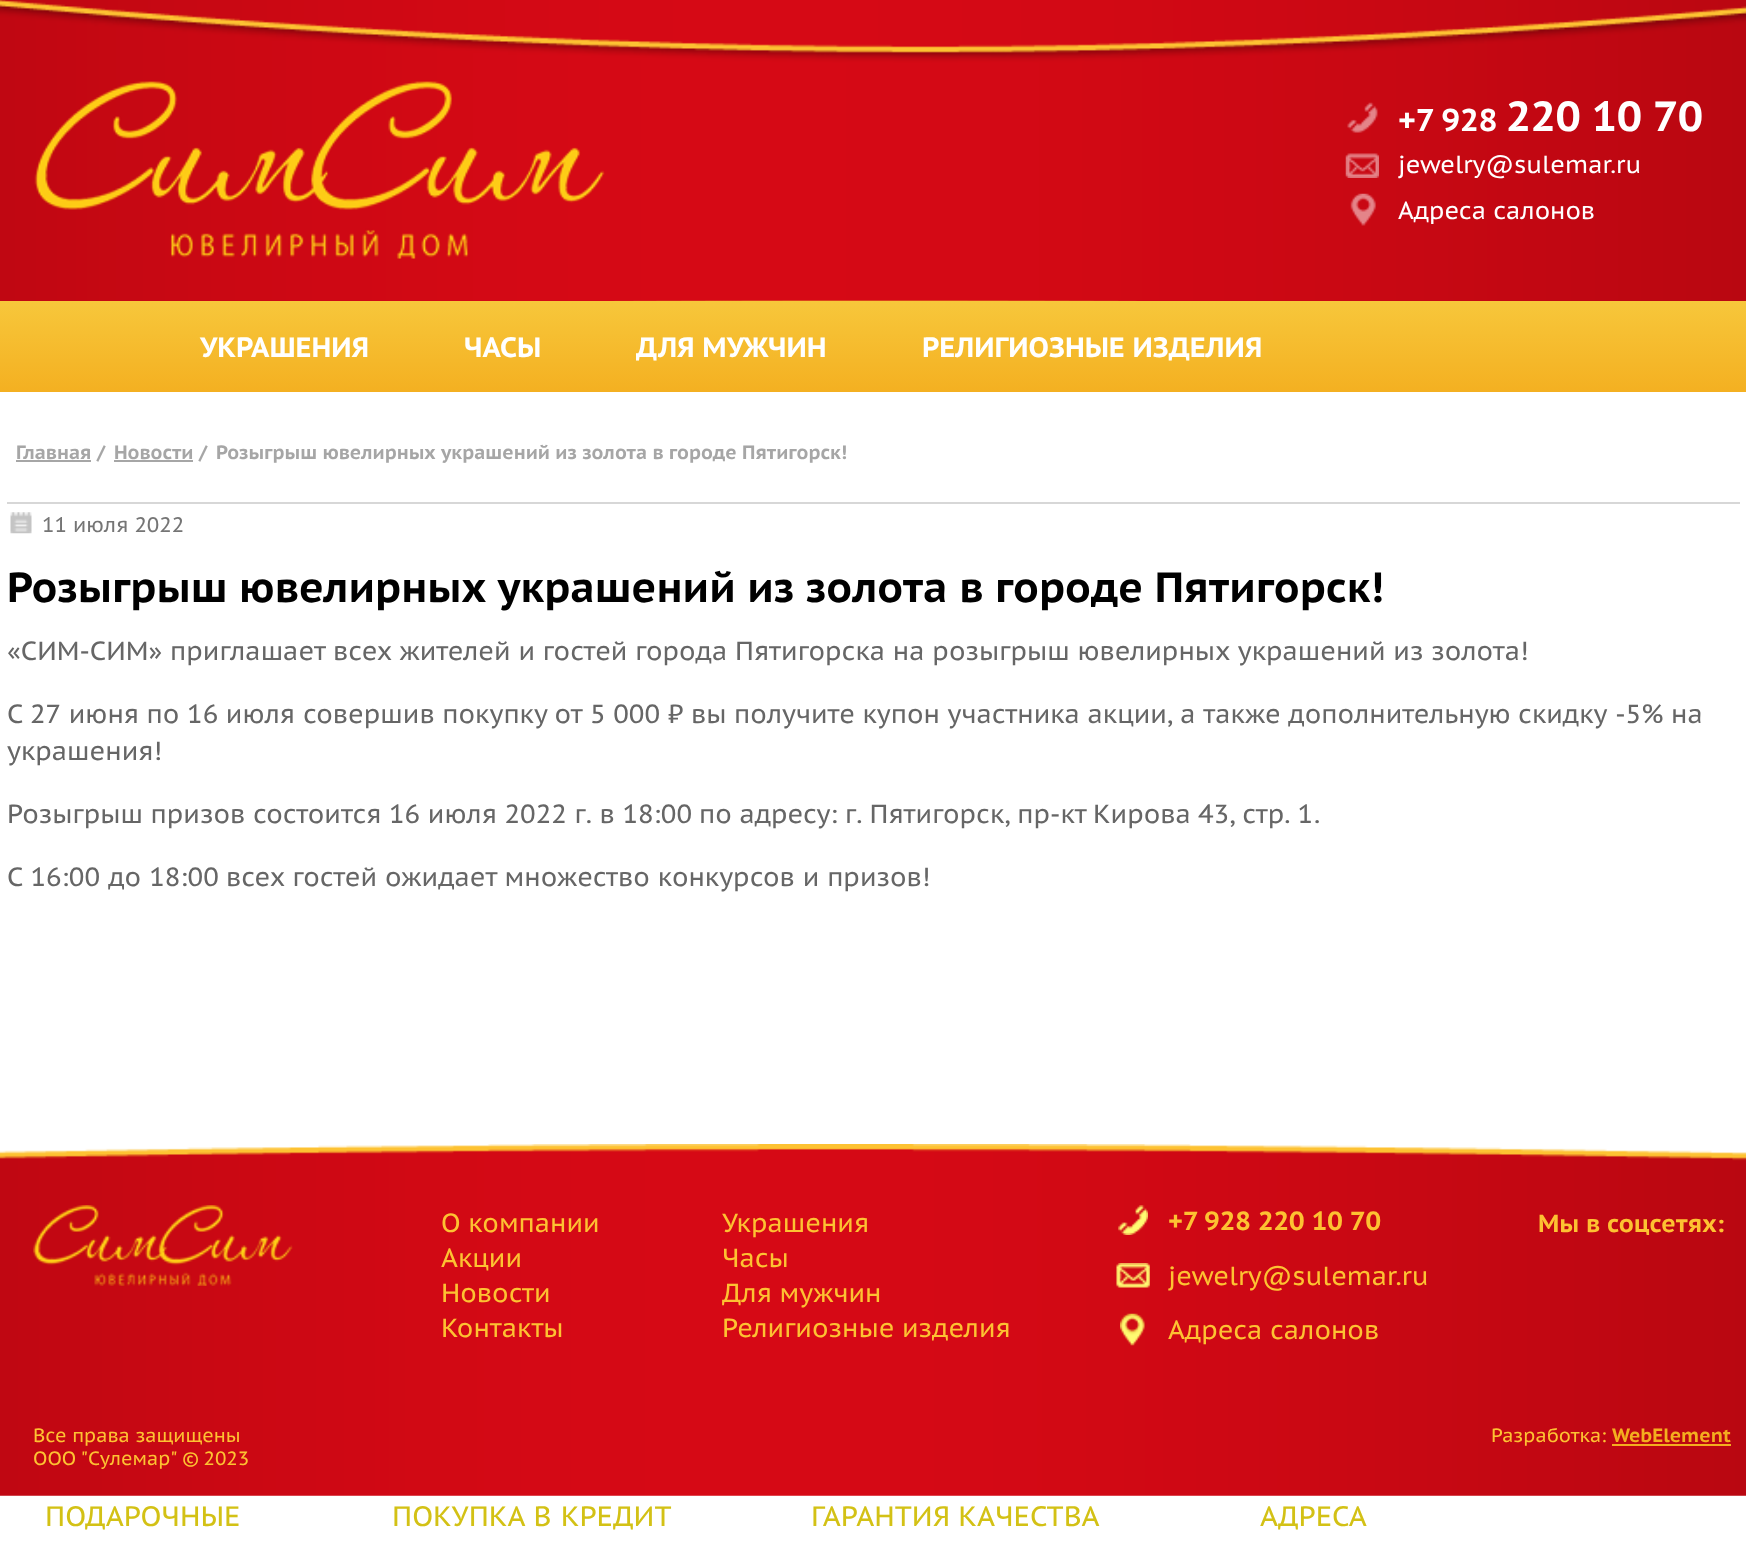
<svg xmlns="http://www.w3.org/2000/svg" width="1746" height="1541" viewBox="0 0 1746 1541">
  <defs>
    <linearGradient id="g1" gradientUnits="userSpaceOnUse" x1="873" y1="301" x2="873" y2="392"><stop offset="0" stop-color="#f7c73b"/><stop offset="1" stop-color="#f4b021"/></linearGradient>
  </defs>
  <rect width="100%" height="100%" fill="#fff"/>
  <image x="0" y="0" width="1746" height="301" href="img/1.png"/>
  <image x="34" y="81" width="571" height="178" href="img/2.png"/>
  <image x="1347" y="102" width="31" height="31" href="img/3.png"/>
  <image x="1345" y="153" width="34" height="25" href="img/4.png"/>
  <image x="1350" y="193" width="26" height="33" href="img/5.png"/>
  <path d="M0 301h1746v91H0z" fill="url(#g1)"/>
  <path d="M7 502h1733v2H7z" fill="#d7d7d7"/>
  <path d="M16 460h75v2H16z" fill="#a6a6a6"/>
  <path d="M114 460h79v2H114z" fill="#a6a6a6"/>
  <image x="10" y="512" width="22" height="22" href="img/6.png"/>
  <image x="0" y="1144" width="1746" height="352" href="img/7.png"/>
  <image x="33" y="1205" width="260" height="81" href="img/8.png"/>
  <image x="1118" y="1205" width="30" height="30" href="img/9.png"/>
  <image x="1116" y="1263" width="34" height="25" href="img/10.png"/>
  <image x="1120" y="1313" width="25" height="33" href="img/11.png"/>
  <path d="M1612 1444h119v2H1612z" fill="#f4ae1f"/>
  <text x="1398" y="131" font-family="PT Sans Caption" font-size="31.5" font-weight="bold" fill="#fff">+7 928</text>
  <text x="1506" y="131" font-family="PT Sans Caption" font-size="42" font-weight="bold" fill="#fff">220 10 70</text>
  <g font-family="PT Sans Caption" font-size="24.5" fill="#fff">
    <text x="1398" y="173">jewelry@sulemar.ru</text>
    <text x="1398" y="219">Адреса салонов</text>
  </g>
  <g font-family="PT Sans Caption" font-size="28" font-weight="bold" fill="#fff">
    <text x="200" y="357">УКРАШЕНИЯ</text>
    <text x="464" y="357">ЧАСЫ</text>
    <text x="636" y="357">ДЛЯ МУЖЧИН</text>
    <text x="922" y="357">РЕЛИГИОЗНЫЕ ИЗДЕЛИЯ</text>
  </g>
  <g font-family="PT Sans Caption" font-size="19.25" font-weight="bold" fill="#a6a6a6">
    <text x="16" y="459">Главная /</text>
    <text x="114" y="459">Новости /</text>
    <text x="216" y="459">Розыгрыш ювелирных украшений из золота в городе Пятигорск!</text>
  </g>
  <text x="42" y="532" font-family="PT Sans Caption" font-size="21" fill="#757575">11 июля 2022</text>
  <text x="7" y="602" font-family="PT Sans Caption" font-size="42" font-weight="bold" fill="#000">Розыгрыш ювелирных украшений из золота в городе Пятигорск!</text>
  <g font-family="PT Sans Caption" font-size="26.25" fill="#666">
    <text x="7" y="660" word-spacing="0.2">«СИМ-СИМ» приглашает всех жителей и гостей города Пятигорска на розыгрыш ювелирных украшений из золота!</text>
    <text x="7" y="723">С 27 июня по 16 июля</text>
    <text x="303" y="723">совершив покупку от</text>
    <text x="590" y="723">5 000 ₽ вы получите купон участника акции, а также дополнительную</text>
    <text x="1518" y="723" word-spacing="1">скидку -5%</text>
    <text x="1671" y="723">на</text>
    <text x="7" y="760">украшения!</text>
    <text x="7" y="823">Розыгрыш призов состоится</text>
    <text x="389" y="823">16 июля 2022 г. в 18:00</text>
    <text x="699" y="823">по адресу:</text>
    <text x="845" y="823" word-spacing="-0.5">г. Пятигорск, пр-кт Кирова 43, стр. 1</text>
    <text x="1314" y="823">.</text>
    <text x="7" y="886" word-spacing="0.5">С 16:00 до 18:00</text>
    <text x="226" y="886" word-spacing="0.25">всех гостей ожидает множество конкурсов и призов!</text>
  </g>
  <g font-family="PT Sans Caption" font-size="26.25" fill="#fdc232">
    <text x="441" y="1232">О компании</text>
    <text x="441" y="1267">Акции</text>
    <text x="441" y="1302">Новости</text>
    <text x="441" y="1337">Контакты</text>
    <text x="722" y="1232">Украшения</text>
    <text x="722" y="1267">Часы</text>
    <text x="722" y="1302">Для мужчин</text>
    <text x="722" y="1337">Религиозные изделия</text>
  </g>
  <text x="1168" y="1230" font-family="PT Sans Caption" font-size="26.25" font-weight="bold" fill="#fdc232">+7 928 220 10 70</text>
  <g font-family="PT Sans Caption" font-size="26.25" fill="#fdc232">
    <text x="1168" y="1285">jewelry@sulemar.ru</text>
    <text x="1168" y="1339">Адреса салонов</text>
  </g>
  <text x="1538" y="1232" font-family="PT Sans Caption" font-size="24.5" font-weight="bold" fill="#fdc232">Мы в соцсетях:</text>
  <g font-family="PT Sans Caption" font-size="19.25" fill="#fdc232">
    <text x="33" y="1442">Все права защищены</text>
    <text x="33" y="1465" word-spacing="-1">ООО "Сулемар" © 2023</text>
    <text x="1491" y="1442">Разработка:</text>
  </g>
  <text x="1612" y="1442" font-family="PT Sans Caption" font-size="19.25" font-weight="bold" fill="#f4ae1f">WebElement</text>
  <g font-family="PT Sans Caption" font-size="28" fill="#d3c115">
    <text x="45" y="1526">ПОДАРОЧНЫЕ</text>
    <text x="392" y="1526" word-spacing="1">ПОКУПКА В КРЕДИТ</text>
    <text x="811" y="1526">ГАРАНТИЯ КАЧЕСТВА</text>
    <text x="1260" y="1526">АДРЕСА</text>
  </g>
</svg>
